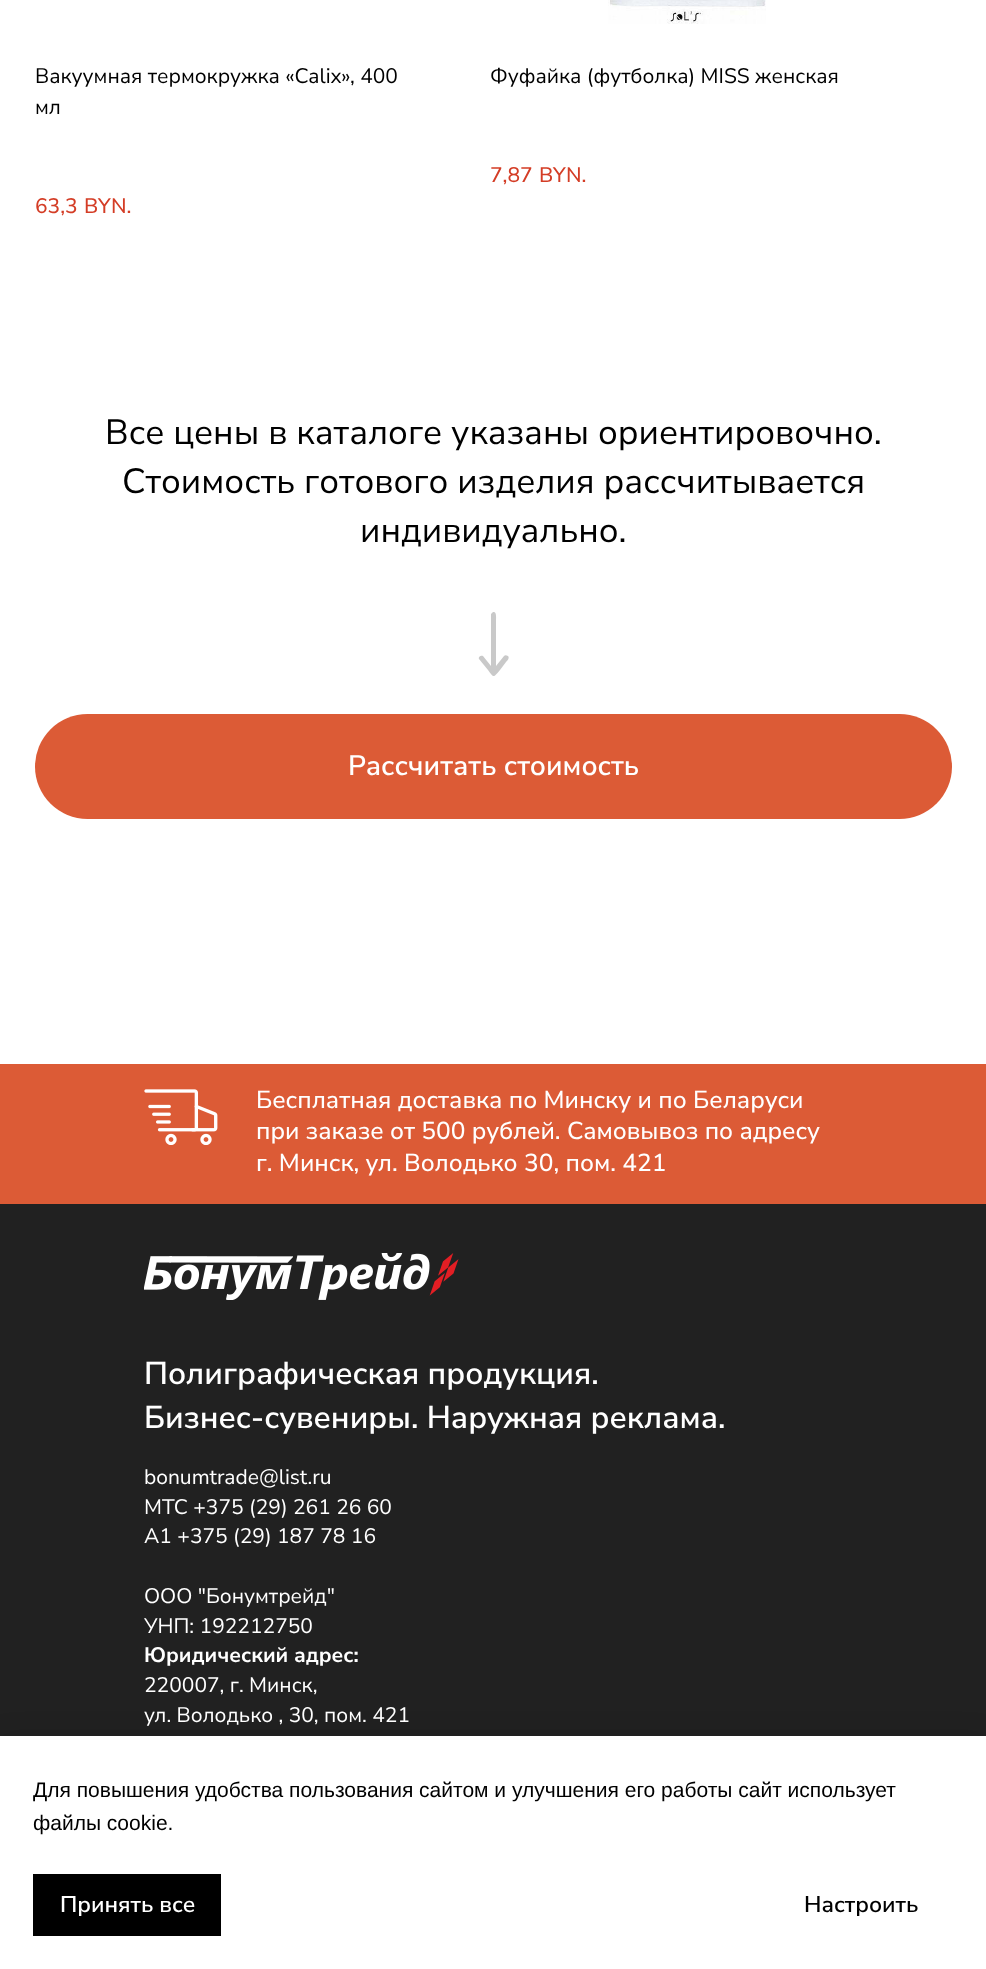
<svg xmlns="http://www.w3.org/2000/svg" width="986" height="1969" viewBox="0 0 986 1969">
  <rect width="100%" height="100%" fill="#fff"/>
  <image x="608" y="0" width="158" height="24" href="img/1.png"/>
  <path d="M508 656C506 655 505 655 504 656L496 666V623C496 618 497 611 493 612L491 614V666L483 656C481 655 478 657 479 659L488 670C494 678 493 678 500 670L506 662C507 661 510 658 508 656Z" fill="#c9c9c9"/>
  <rect x="35" y="714" width="917" height="105" rx="52.5" fill="#dc5b36"/>
  <path d="M0 1064h986v140H0z" fill="#dc5b36"/>
  <image x="144" y="1089" width="74" height="56" href="img/2.png"/>
  <path d="M0 1204h986v532H0z" fill="#212121"/>
  <image x="144" y="1253" width="315" height="47" href="img/3.png"/>
  <path d="M0 1736h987v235H0z" fill="#0000001a" filter="blur(13px)"/>
  <path d="M0 1736h986v233H0z" fill="#fff"/>
  <path d="M33 1874h188v62H33z" fill="#000"/>
  <g font-family="Nunito Sans" font-size="21" fill="#000">
    <text x="35" y="83">Вакуумная термокружка «Calix», 400</text>
    <text x="35" y="114">мл</text>
  </g>
  <g font-family="Nunito Sans" font-size="21" font-weight="500" fill="#d43d26">
    <text x="35" y="213">63,3</text>
    <text x="84" y="213">BYN.</text>
  </g>
  <text x="490" y="83" font-family="Nunito Sans" font-size="21" fill="#000">Фуфайка (футболка) MISS женская</text>
  <g font-family="Nunito Sans" font-size="21" font-weight="500" fill="#d43d26">
    <text x="490" y="182">7,87</text>
    <text x="539" y="182">BYN.</text>
  </g>
  <g font-family="Nunito Sans" font-size="35" fill="#000">
    <text x="105" y="444">Все цены в каталоге указаны ориентировочно.</text>
    <text x="122" y="493">Стоимость готового изделия рассчитывается</text>
    <text x="360" y="542">индивидуально.</text>
  </g>
  <text x="348" y="775" font-family="Nunito Sans" font-size="28" font-weight="600" fill="#fff">Рассчитать стоимость</text>
  <g font-family="Nunito Sans" font-size="24.5" font-weight="500" fill="#fff">
    <text x="256" y="1108">Бесплатная доставка по Минску и по Беларуси</text>
    <text x="256" y="1139">при заказе от 500 рублей. Самовывоз по адресу</text>
    <text x="256" y="1171">г. Минск, ул. Володько 30, пом. 421</text>
  </g>
  <g font-family="Nunito Sans" font-size="31.5" font-weight="600" fill="#fff">
    <text x="144" y="1384">Полиграфическая продукция.</text>
    <text x="144" y="1428">Бизнес-сувениры. Наружная реклама.</text>
  </g>
  <g font-family="Nunito Sans" font-size="21" fill="#fff">
    <text x="144" y="1484">bonumtrade@list.ru</text>
    <text x="144" y="1514">МТС +375 (29) 261 26 60</text>
    <text x="144" y="1543">A1 +375 (29) 187 78 16</text>
    <text x="144" y="1603">ООО "Бонумтрейд"</text>
    <text x="144" y="1633">УНП: 192212750</text>
  </g>
  <text x="144" y="1662" font-family="Nunito Sans" font-size="21" font-weight="bold" fill="#fff">Юридический адрес:</text>
  <g font-family="Nunito Sans" font-size="21" fill="#fff">
    <text x="144" y="1692">220007, г. Минск,</text>
    <text x="144" y="1722">ул. Володько , 30, пом. 421</text>
  </g>
  <g font-family="Liberation Sans" font-size="21" fill="#000">
    <text x="33" y="1797">Для повышения удобства пользования сайтом и улучшения его работы сайт использует</text>
    <text x="33" y="1830">файлы cookie.</text>
  </g>
  <text x="60" y="1912" font-family="Nunito Sans" font-size="22.75" font-weight="600" fill="#fff">Принять все</text>
  <text x="804" y="1912" font-family="Nunito Sans" font-size="22.75" font-weight="600" fill="#000">Настроить</text>
</svg>
